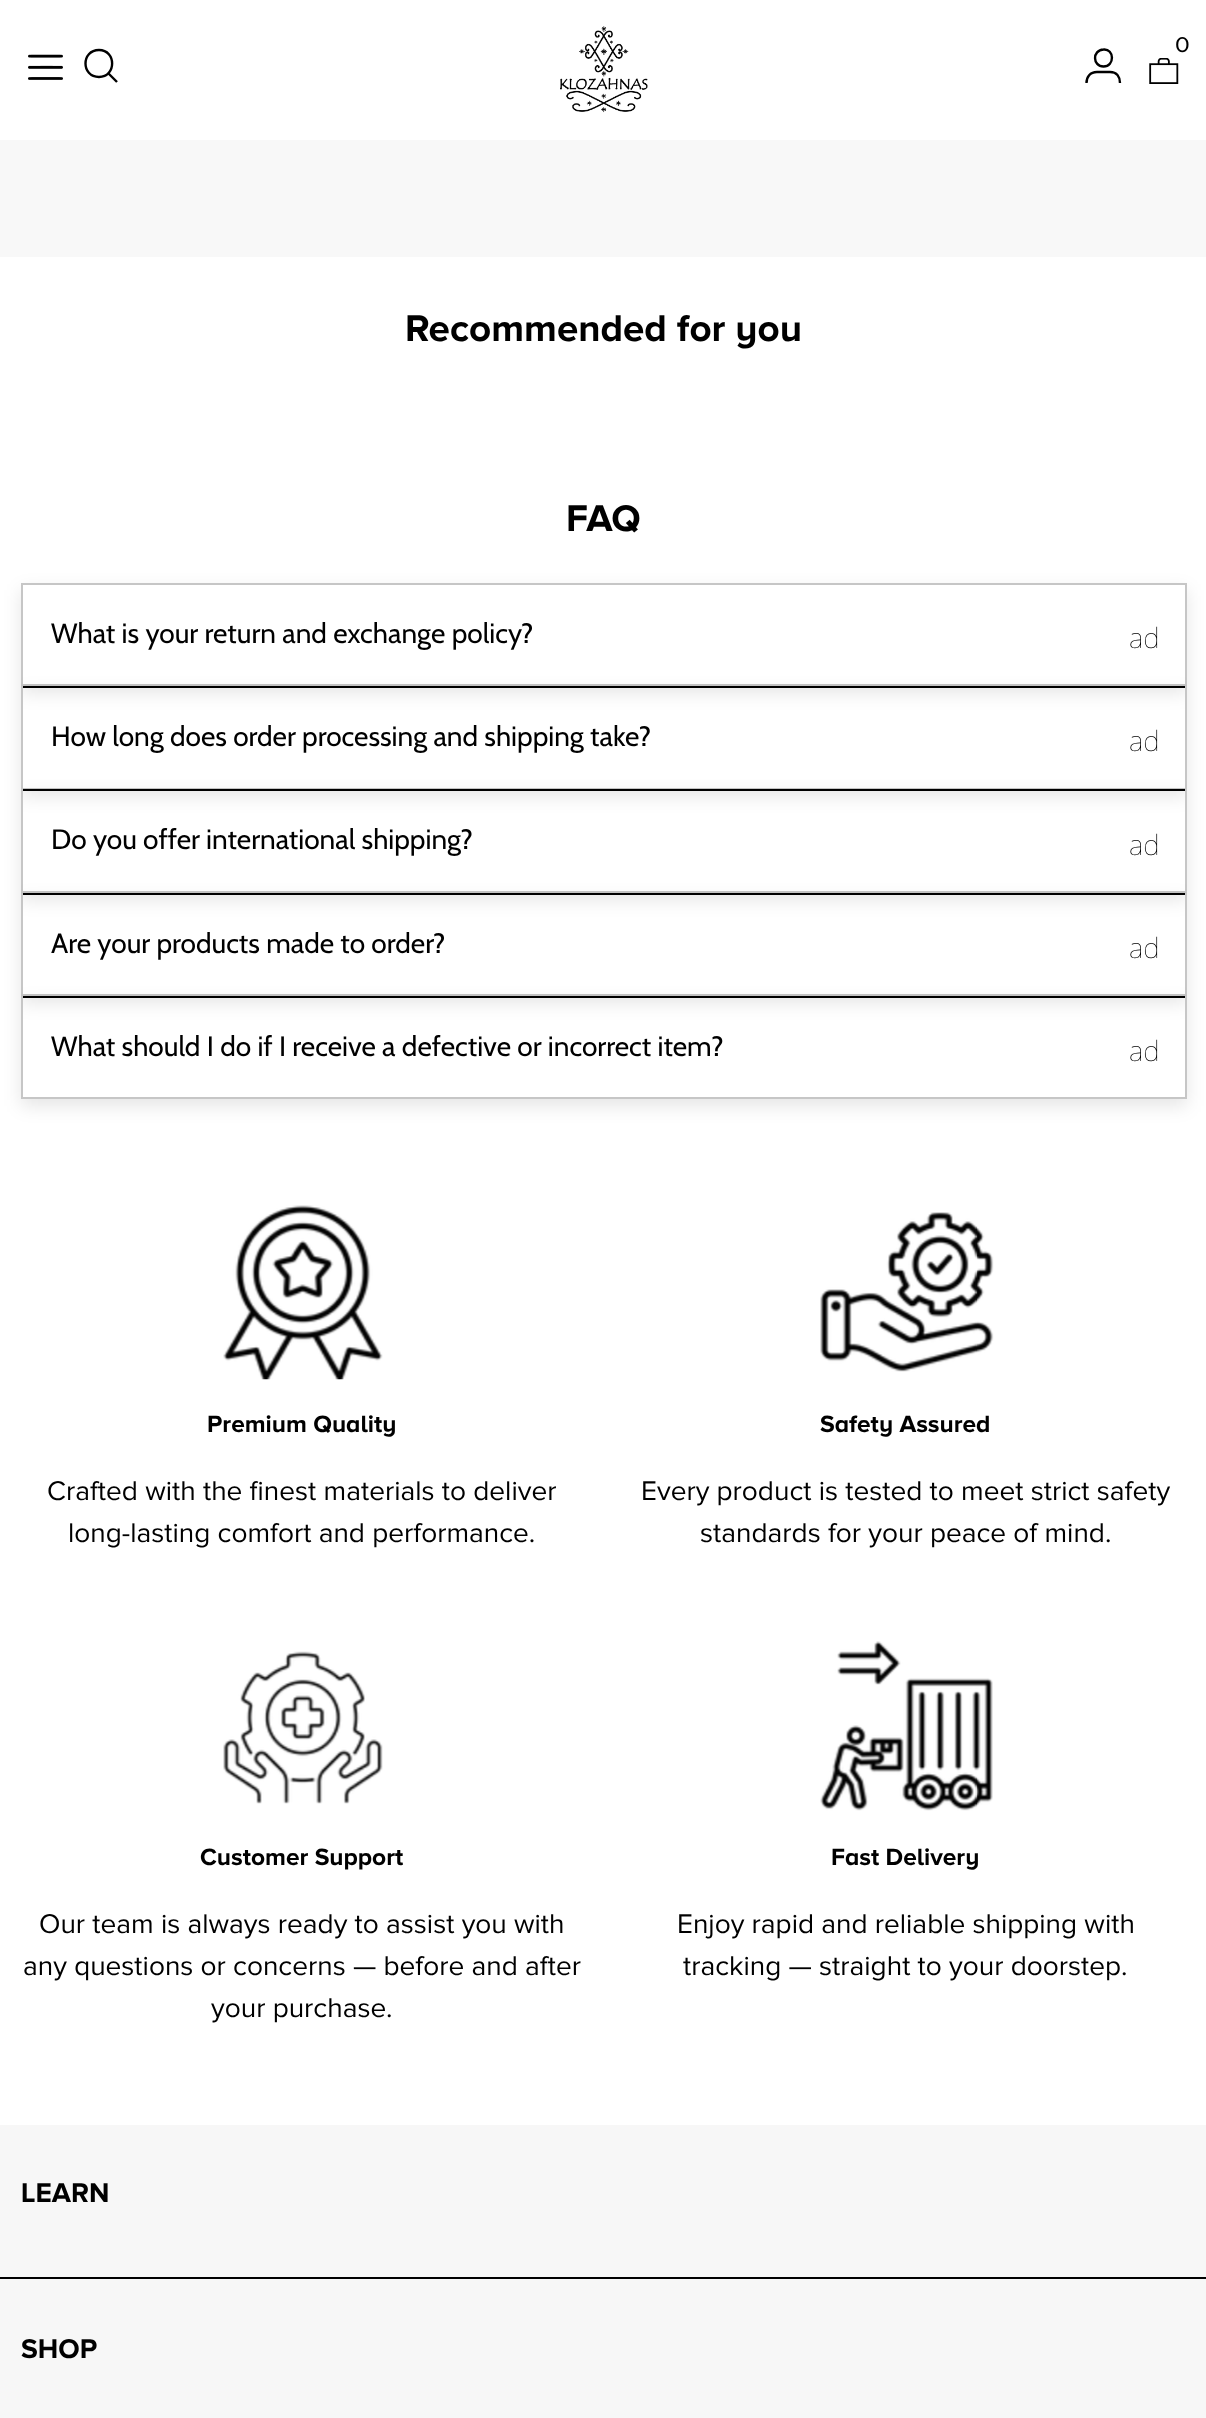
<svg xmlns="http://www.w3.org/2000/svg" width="1206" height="2418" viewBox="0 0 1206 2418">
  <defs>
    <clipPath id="clip1"><path d="M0 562H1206V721H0ZM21 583H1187V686H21Z" clip-rule="evenodd"/></clipPath>
    <clipPath id="clip2"><path d="M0 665H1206V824H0ZM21 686H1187V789H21Z" clip-rule="evenodd"/></clipPath>
    <clipPath id="clip3"><path d="M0 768H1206V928H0ZM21 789H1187V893H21Z" clip-rule="evenodd"/></clipPath>
    <clipPath id="clip4"><path d="M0 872H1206V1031H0ZM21 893H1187V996H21Z" clip-rule="evenodd"/></clipPath>
    <clipPath id="clip5"><path d="M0 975H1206V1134H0ZM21 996H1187V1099H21Z" clip-rule="evenodd"/></clipPath>
  </defs>
  <rect width="100%" height="100%" fill="#fff"/>
  <image x="560" y="26" width="88" height="87" href="img/1.png"/>
  <image x="1149" y="58" width="30" height="26" href="img/2.png"/>
  <path d="M1103.5 66.5C1115 66.5 1114.5 48.5 1103.5 49.5C1092 50 1092.5 66.5 1103.5 66.5ZM1086.5 83C1086.5 77 1090 72 1097 72H1110C1117 72 1120 77 1120 83" fill="none" stroke="#000" stroke-width="2.4"/>
  <image x="28" y="54" width="35" height="26" href="img/3.png"/>
  <path d="M99 77C116.5 77 116.5 50 99 50C81 50 81 77 99 77Z" fill="none" stroke="#000" stroke-width="2.4" stroke-linecap="round"/>
  <path d="M108.5 73.5L117 82" fill="none" stroke="#000" stroke-width="2.4"/>
  <path d="M0 140h1206v117H0z" fill="#f8f8f8"/>
  <g clip-path="url(#clip1)">
    <path d="M21 590h1166v103H21z" fill="#0000001a" filter="blur(9px)"/>
  </g>
  <path d="M22 584h1164v101H22z" fill="none" stroke="#c6c6c6" stroke-width="2"/>
  <g clip-path="url(#clip2)">
    <path d="M21 693h1166v103H21z" fill="#0000001a" filter="blur(9px)"/>
  </g>
  <path d="M21 686h1166v2H21z" fill="#000"/>
  <path d="M1185 686h2v103H1185z" fill="#c6c6c6"/>
  <path d="M21 788h1166v1H21z" fill="#c6c6c6"/>
  <path d="M21 686h2v103H21z" fill="#c6c6c6"/>
  <g clip-path="url(#clip3)">
    <path d="M21 796h1166v104H21z" fill="#0000001a" filter="blur(9px)"/>
  </g>
  <path d="M21 789h1166v2H21z" fill="#000"/>
  <path d="M1185 789h2v104H1185z" fill="#c6c6c6"/>
  <path d="M21 891h1166v2H21z" fill="#c6c6c6"/>
  <path d="M21 789h2v104H21z" fill="#c6c6c6"/>
  <g clip-path="url(#clip4)">
    <path d="M21 900h1166v103H21z" fill="#0000001a" filter="blur(9px)"/>
  </g>
  <path d="M21 893h1166v2H21z" fill="#000"/>
  <path d="M1185 893h2v103H1185z" fill="#c6c6c6"/>
  <path d="M21 994h1166v2H21z" fill="#c6c6c6"/>
  <path d="M21 893h2v103H21z" fill="#c6c6c6"/>
  <g clip-path="url(#clip5)">
    <path d="M21 1003h1166v103H21z" fill="#0000001a" filter="blur(9px)"/>
  </g>
  <path d="M21 996h1166v2H21z" fill="#000"/>
  <path d="M1185 996h2v103H1185z" fill="#c6c6c6"/>
  <path d="M21 1097h1166v2H21z" fill="#c6c6c6"/>
  <path d="M21 996h2v103H21z" fill="#c6c6c6"/>
  <image x="223" y="1205" width="160" height="175" href="img/4.png"/>
  <image x="820" y="1212" width="174" height="160" href="img/5.png"/>
  <image x="223" y="1651" width="160" height="153" href="img/6.png"/>
  <image x="820" y="1641" width="173" height="170" href="img/7.png"/>
  <path d="M0 2125h1206v293H0z" fill="#f7f7f7"/>
  <path d="M0 2277h1206v2H0z" fill="#000"/>
  <text x="1175" y="52" font-family="Cabin" font-size="21" fill="#000">0</text>
  <g font-family="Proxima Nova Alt" font-size="38.5" font-weight="bold" fill="#000">
    <text x="405" y="341">Recommended for you</text>
    <text x="566" y="531">FAQ</text>
  </g>
  <text x="51" y="643" font-family="Cabin" font-size="28" fill="#000">What is your return and exchange policy?</text>
  <text x="1129" y="648" font-family="Noto Sans" font-size="28" font-weight="100" fill="#000">ad</text>
  <text x="51" y="746" font-family="Cabin" font-size="28" fill="#000">How long does order processing and shipping take?</text>
  <text x="1129" y="751" font-family="Noto Sans" font-size="28" font-weight="100" fill="#000">ad</text>
  <text x="51" y="849" font-family="Cabin" font-size="28" fill="#000">Do you offer international shipping?</text>
  <text x="1129" y="855" font-family="Noto Sans" font-size="28" font-weight="100" fill="#000">ad</text>
  <text x="51" y="953" font-family="Cabin" font-size="28" fill="#000">Are your products made to order?</text>
  <text x="1129" y="958" font-family="Noto Sans" font-size="28" font-weight="100" fill="#000">ad</text>
  <text x="51" y="1056" font-family="Cabin" font-size="28" fill="#000">What should I do if I receive a defective or incorrect item?</text>
  <text x="1129" y="1061" font-family="Noto Sans" font-size="28" font-weight="100" fill="#000">ad</text>
  <text x="207" y="1432" font-family="Proxima Nova Alt" font-size="24.5" font-weight="bold" fill="#000">Premium Quality</text>
  <g font-family="Proxima Nova" font-size="28" fill="#000">
    <text x="47" y="1500">Crafted with the finest materials to deliver</text>
    <text x="68" y="1542">long-lasting comfort and performance.</text>
  </g>
  <text x="820" y="1432" font-family="Proxima Nova Alt" font-size="24.5" font-weight="bold" fill="#000">Safety Assured</text>
  <g font-family="Proxima Nova" font-size="28" fill="#000">
    <text x="641" y="1500">Every product is tested to meet strict safety</text>
    <text x="700" y="1542">standards for your peace of mind.</text>
  </g>
  <text x="200" y="1865" font-family="Proxima Nova Alt" font-size="24.5" font-weight="bold" fill="#000">Customer Support</text>
  <g font-family="Proxima Nova" font-size="28" fill="#000">
    <text x="39" y="1933">Our team is always ready to assist you with</text>
    <text x="23" y="1975">any questions or concerns — before and after</text>
    <text x="211" y="2017">your purchase.</text>
  </g>
  <text x="831" y="1865" font-family="Proxima Nova Alt" font-size="24.5" font-weight="bold" fill="#000">Fast Delivery</text>
  <g font-family="Proxima Nova" font-size="28" fill="#000">
    <text x="677" y="1933">Enjoy rapid and reliable shipping with</text>
    <text x="683" y="1975">tracking — straight to your doorstep.</text>
  </g>
  <g font-family="Proxima Nova Alt" font-size="28" font-weight="bold" fill="#000">
    <text x="21" y="2202">LEARN</text>
    <text x="21" y="2358">SHOP</text>
  </g>
</svg>
